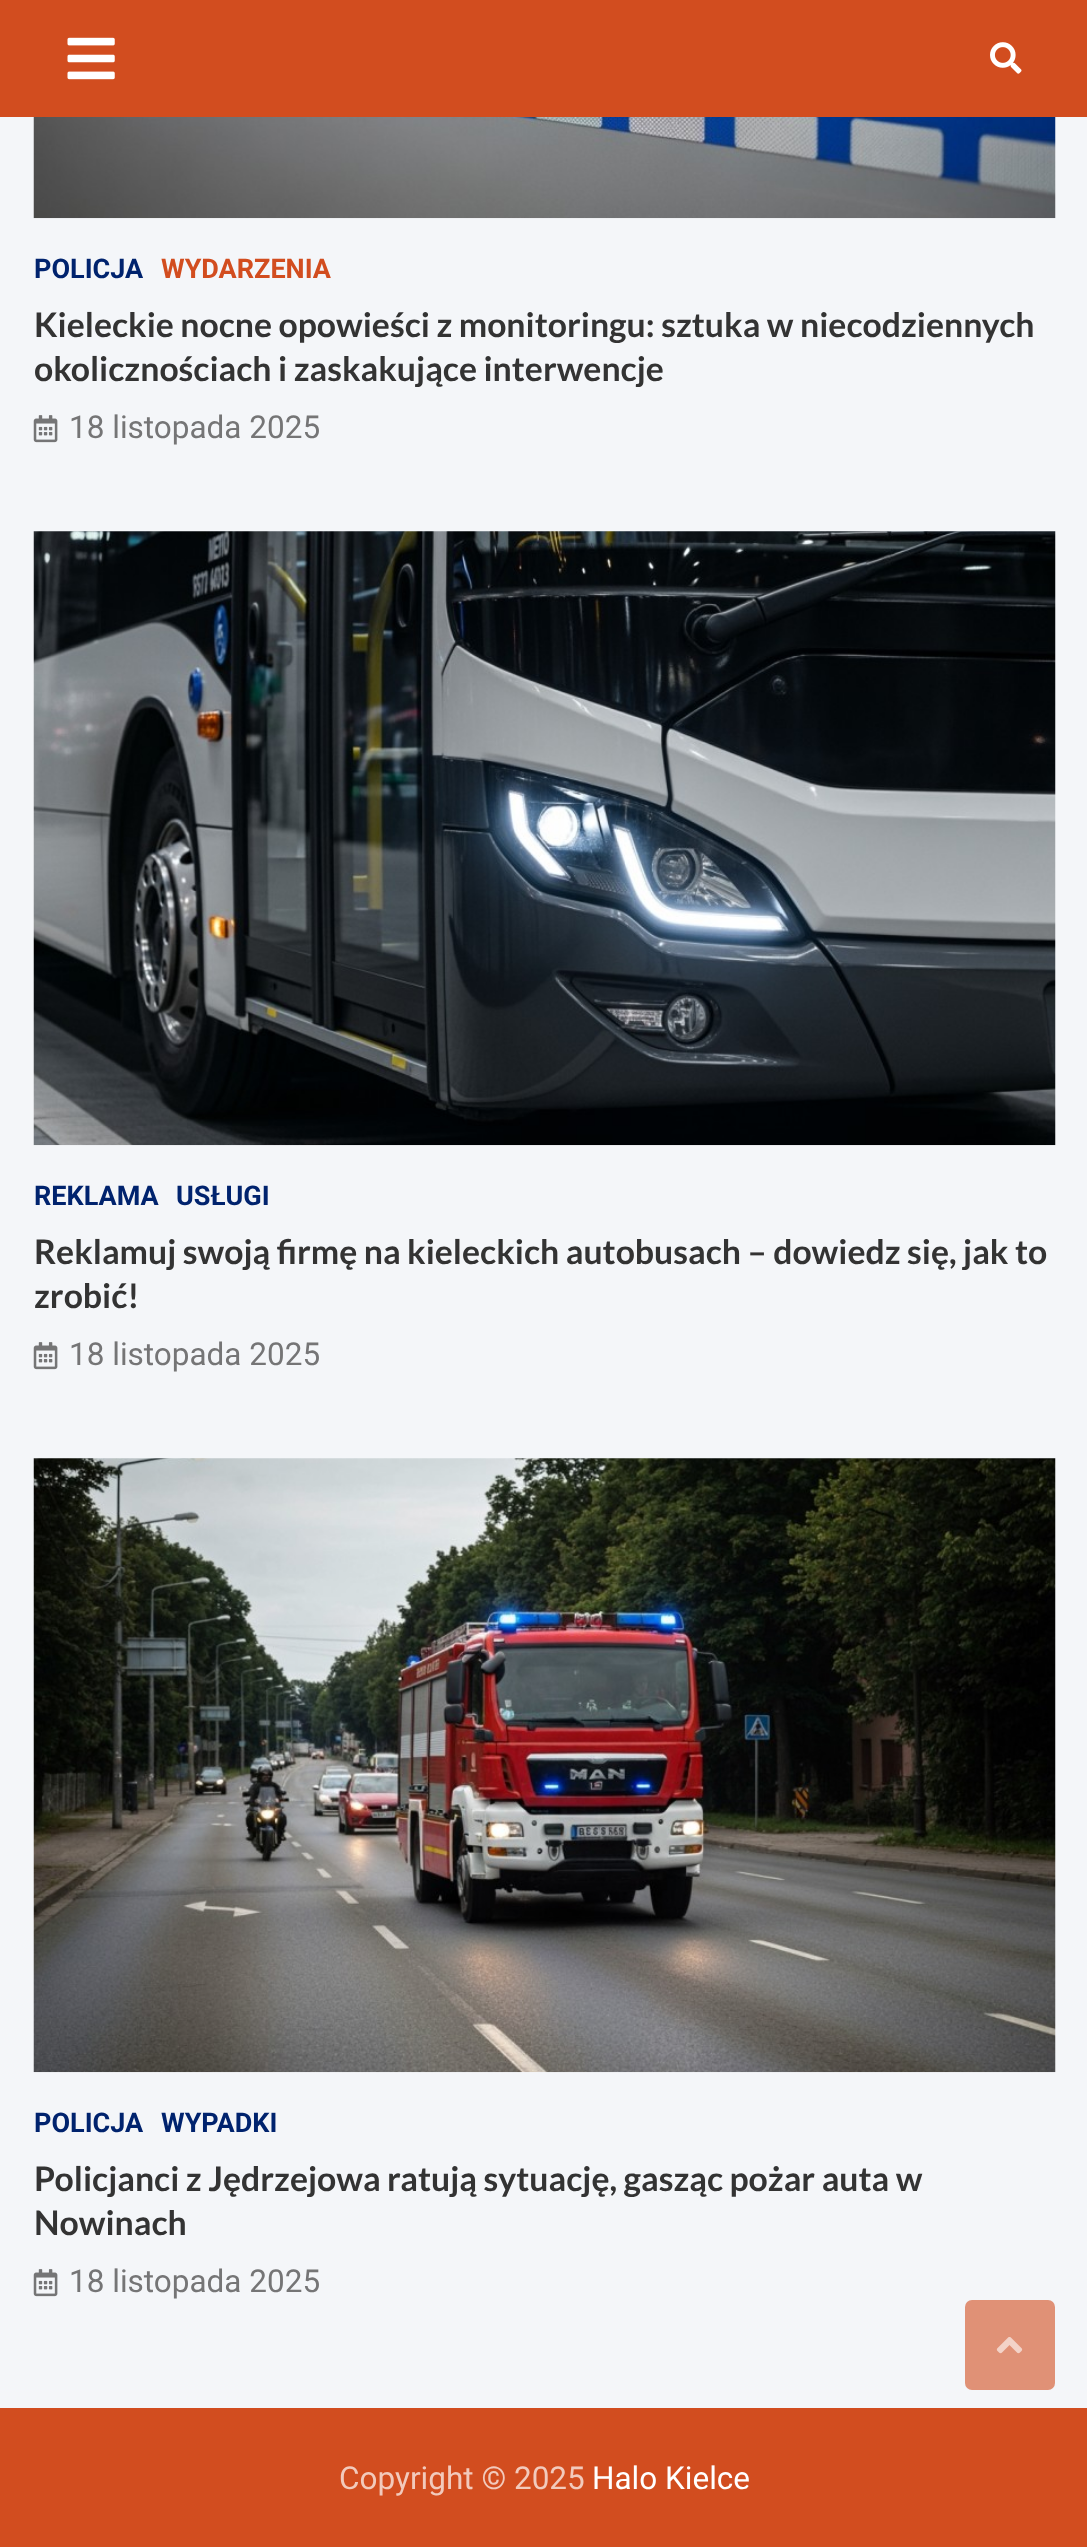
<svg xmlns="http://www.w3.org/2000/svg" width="1087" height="2547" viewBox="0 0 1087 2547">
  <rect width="100%" height="100%" fill="#f4f6f9"/>
  <path d="M0 0h1087v117H0z" fill="#d24d1f"/>
  <image x="67" y="37" width="48" height="43" href="img/1.png"/>
  <image x="990" y="42" width="32" height="32" href="img/2.png"/>
  <image x="33" y="117" width="1023" height="102" href="img/3.png"/>
  <image x="33" y="415" width="25" height="28" href="img/4.png"/>
  <image x="33" y="531" width="1023" height="615" href="img/5.png"/>
  <image x="33" y="1342" width="25" height="28" href="img/4.png"/>
  <image x="33" y="1458" width="1023" height="615" href="img/6.png"/>
  <image x="33" y="2269" width="25" height="28" href="img/4.png"/>
  <path d="M0 2408h1087v139H0z" fill="#d24d1f"/>
  <rect x="965" y="2300" width="90" height="90" rx="7" fill="#e09176"/>
  <image x="996" y="2337" width="27" height="17" href="img/7.png"/>
  <text x="34" y="278" font-family="Roboto" font-size="27" font-weight="bold" fill="#00236e">POLICJA</text>
  <text x="161" y="278" font-family="Roboto" font-size="27" font-weight="bold" fill="#d24d1f">WYDARZENIA</text>
  <g font-family="Lato" font-size="33.75" font-weight="bold" fill="#333">
    <text x="34" y="337">Kieleckie nocne opowieści z monitoringu: sztuka w niecodziennych</text>
    <text x="34" y="381">okolicznościach i zaskakujące interwencje</text>
  </g>
  <text x="69" y="438" font-family="Roboto" font-size="31.5" fill="#757576">18 listopada 2025</text>
  <g font-family="Roboto" font-size="27" font-weight="bold" fill="#00236e">
    <text x="34" y="1205">REKLAMA</text>
    <text x="176" y="1205">USŁUGI</text>
  </g>
  <g font-family="Lato" font-size="33.75" font-weight="bold" fill="#333">
    <text x="34" y="1264">Reklamuj swoją firmę na kieleckich autobusach – dowiedz się, jak to</text>
    <text x="34" y="1308">zrobić!</text>
  </g>
  <text x="69" y="1365" font-family="Roboto" font-size="31.5" fill="#757576">18 listopada 2025</text>
  <g font-family="Roboto" font-size="27" font-weight="bold" fill="#00236e">
    <text x="34" y="2132">POLICJA</text>
    <text x="161" y="2132">WYPADKI</text>
  </g>
  <g font-family="Lato" font-size="33.75" font-weight="bold" fill="#333">
    <text x="34" y="2191">Policjanci z Jędrzejowa ratują sytuację, gasząc pożar auta w</text>
    <text x="34" y="2235">Nowinach</text>
  </g>
  <text x="69" y="2292" font-family="Roboto" font-size="31.5" fill="#757576">18 listopada 2025</text>
  <text x="339" y="2489" font-family="Roboto" font-size="31.5" fill="#f2cabc">Copyright © 2025</text>
  <text x="592" y="2489" font-family="Roboto" font-size="31.5" fill="#fff">Halo Kielce</text>
</svg>
